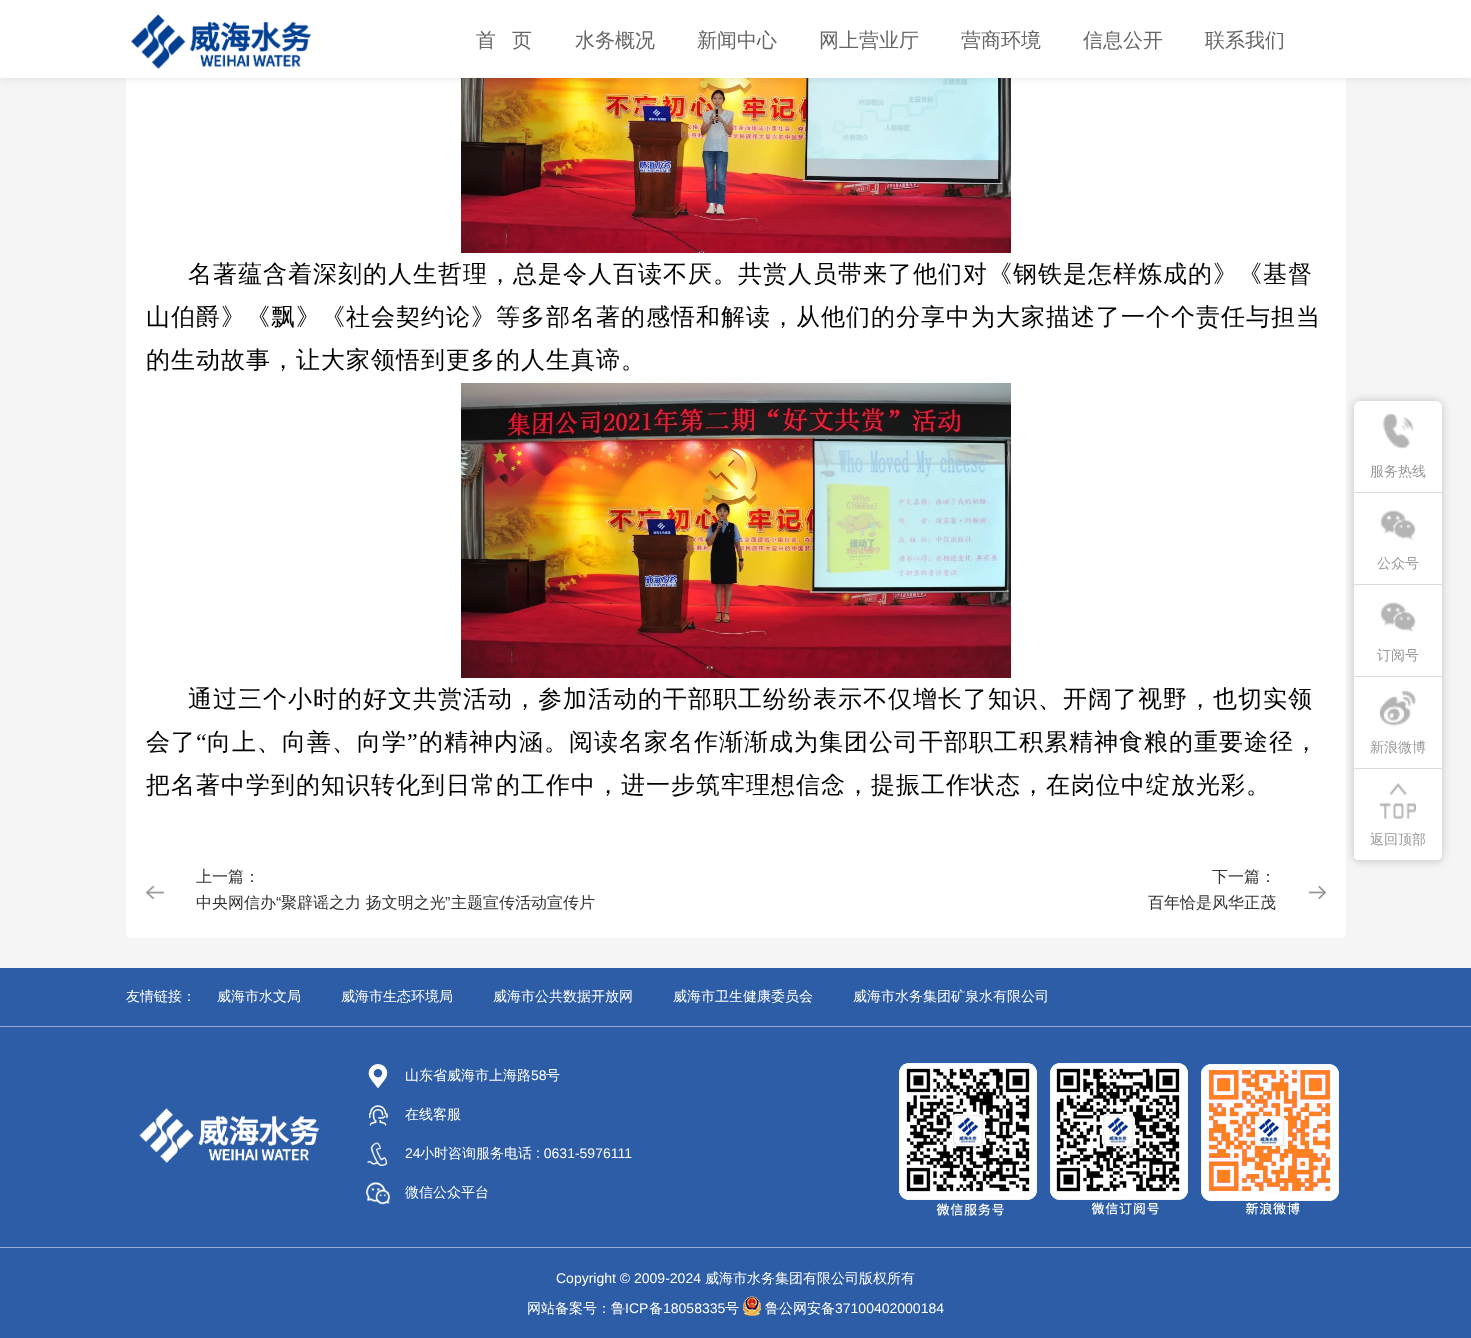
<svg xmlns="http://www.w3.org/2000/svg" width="1471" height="1338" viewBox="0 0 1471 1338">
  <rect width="100%" height="100%" fill="#f5f5f5"/>
  <rect x="126" y="-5" width="1220" height="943" rx="5" fill="#fff"/>
  <image x="461" y="78" width="550" height="175" href="img/2.png"/>
  <path d="M0 0h1471v78H0z" fill="#0000001a" filter="blur(5px)"/>
  <path d="M0 0h1471v78H0z" fill="#fff"/>
  <image x="130" y="14" width="182" height="55" href="img/1.png"/>
  <image x="461" y="383" width="550" height="295" href="img/3.png"/>
  <image x="146" y="886" width="18" height="13" href="img/4.png"/>
  <image x="1309" y="886" width="17" height="13" href="img/5.png"/>
  <rect x="1354" y="401" width="88" height="460" rx="6" fill="#00000033" filter="blur(5px)"/>
  <rect x="1354" y="401" width="88" height="460" rx="6" fill="#fff"/>
  <image x="1382" y="413" width="32" height="36" href="img/6.png"/>
  <path d="M1354 492h88v1H1354z" fill="#dfdbdb"/>
  <image x="1380" y="510" width="36" height="30" href="img/7.png"/>
  <path d="M1354 584h88v1H1354z" fill="#dfdbdb"/>
  <image x="1380" y="602" width="36" height="30" href="img/7.png"/>
  <path d="M1354 676h88v1H1354z" fill="#dfdbdb"/>
  <image x="1380" y="691" width="36" height="35" href="img/8.png"/>
  <path d="M1354 768h88v1H1354z" fill="#dfdbdb"/>
  <image x="1380" y="783" width="36" height="36" href="img/9.png"/>
  <path d="M1354 860h88v1H1354z" fill="#dfdbdb"/>
  <path d="M0 968h1471v370H0z" fill="#2c5da6"/>
  <path d="M0 1026h1471v1H0z" fill="#96aed3"/>
  <image x="139" y="1108" width="181" height="55" href="img/10.png"/>
  <image x="368" y="1064" width="20" height="24" href="img/11.png"/>
  <image x="369" y="1105" width="19" height="21" href="img/12.png"/>
  <image x="367" y="1142" width="21" height="24" href="img/13.png"/>
  <image x="366" y="1182" width="24" height="23" href="img/14.png"/>
  <image x="899" y="1063" width="440" height="153" href="img/15.png"/>
  <path d="M0 1247h1471v1H0z" fill="#96aed3"/>
  <image x="743" y="1296" width="18" height="20" href="img/16.png"/>
  <g font-family="WenQuanYi Zen Hei" font-size="20" font-weight="500" fill="#666">
    <text x="476" y="47">首</text>
    <text x="512" y="47">页</text>
    <text x="575" y="47">水务概况</text>
    <text x="697" y="47">新闻中心</text>
    <text x="819" y="47">网上营业厅</text>
    <text x="961" y="47">营商环境</text>
    <text x="1083" y="47">信息公开</text>
    <text x="1205" y="47">联系我们</text>
  </g>
  <g font-family="WenQuanYi Zen Hei" font-size="24" font-weight="500" letter-spacing="1" fill="#000">
    <text x="188" y="282">名著蕴含着深刻的人生哲理，总是令人百读不厌。共赏人员带来了他们对《钢铁是怎样炼成的》《基督</text>
    <text x="146" y="325">山伯爵》《飘》《社会契约论》等多部名著的感悟和解读，从他们的分享中为大家描述了一个个责任与担当</text>
    <text x="146" y="368">的生动故事，让大家领悟到更多的人生真谛。</text>
    <text x="188" y="707">通过三个小时的好文共赏活动，参加活动的干部职工纷纷表示不仅增长了知识、开阔了视野，也切实领</text>
    <text x="146" y="750">会了</text>
  </g>
  <text x="196" y="750" font-family="Liberation Serif" font-size="24" letter-spacing="1" fill="#000">“</text>
  <text x="207" y="750" font-family="WenQuanYi Zen Hei" font-size="24" font-weight="500" letter-spacing="1" fill="#000">向上、向善、向学</text>
  <text x="407" y="750" font-family="Liberation Serif" font-size="24" letter-spacing="1" fill="#000">”</text>
  <g font-family="WenQuanYi Zen Hei" font-size="24" font-weight="500" letter-spacing="1" fill="#000">
    <text x="419" y="750">的精神内涵。阅读名家名作渐渐成为集团公司干部职工积累精神食粮的重要途径，</text>
    <text x="146" y="793">把名著中学到的知识转化到日常的工作中，进一步筑牢理想信念，提振工作状态，在岗位中绽放光彩。</text>
  </g>
  <g font-family="WenQuanYi Zen Hei" font-size="16" font-weight="500" fill="#333">
    <text x="196" y="882">上一篇：</text>
    <text x="196" y="908">中央网信办</text>
  </g>
  <text x="276" y="908" font-family="Liberation Sans" font-size="16" fill="#333">“</text>
  <text x="281" y="908" font-family="WenQuanYi Zen Hei" font-size="16" font-weight="500" fill="#333">聚辟谣之力 扬文明之光</text>
  <text x="445" y="908" font-family="Liberation Sans" font-size="16" fill="#333">”</text>
  <g font-family="WenQuanYi Zen Hei" font-size="16" font-weight="500" fill="#333">
    <text x="451" y="908">主题宣传活动宣传片</text>
    <text x="1212" y="882">下一篇：</text>
    <text x="1148" y="908">百年恰是风华正茂</text>
  </g>
  <g font-family="WenQuanYi Zen Hei" font-size="14" font-weight="500" fill="#999">
    <text x="1370" y="476">服务热线</text>
    <text x="1377" y="568">公众号</text>
    <text x="1377" y="660">订阅号</text>
    <text x="1370" y="752">新浪微博</text>
    <text x="1370" y="844">返回顶部</text>
  </g>
  <g font-family="WenQuanYi Zen Hei" font-size="14" font-weight="500" fill="#fff">
    <text x="126" y="1001">友情链接：</text>
    <text x="217" y="1001">威海市水文局</text>
    <text x="341" y="1001">威海市生态环境局</text>
    <text x="493" y="1001">威海市公共数据开放网</text>
    <text x="673" y="1001">威海市卫生健康委员会</text>
    <text x="853" y="1001">威海市水务集团矿泉水有限公司</text>
    <text x="405" y="1080">山东省威海市上海路</text>
  </g>
  <text x="531" y="1080" font-family="Liberation Sans" font-size="14" fill="#fff">58</text>
  <g font-family="WenQuanYi Zen Hei" font-size="14" font-weight="500" fill="#fff">
    <text x="546" y="1080">号</text>
    <text x="405" y="1119">在线客服</text>
  </g>
  <text x="405" y="1158" font-family="Liberation Sans" font-size="14" fill="#fff">24</text>
  <text x="420" y="1158" font-family="WenQuanYi Zen Hei" font-size="14" font-weight="500" fill="#fff">小时咨询服务电话</text>
  <text x="536" y="1158" font-family="Liberation Sans" font-size="14" fill="#fff">: 0631-5976111</text>
  <text x="405" y="1197" font-family="WenQuanYi Zen Hei" font-size="14" font-weight="500" fill="#fff">微信公众平台</text>
  <text x="556" y="1283" font-family="Liberation Sans" font-size="14" fill="#fff">Copyright © 2009-2024</text>
  <g font-family="WenQuanYi Zen Hei" font-size="14" font-weight="500" fill="#fff">
    <text x="705" y="1283">威海市水务集团有限公司版权所有</text>
    <text x="527" y="1313">网站备案号：鲁</text>
  </g>
  <text x="625" y="1313" font-family="Liberation Sans" font-size="14" fill="#fff">ICP</text>
  <text x="649" y="1313" font-family="WenQuanYi Zen Hei" font-size="14" font-weight="500" fill="#fff">备</text>
  <text x="663" y="1313" font-family="Liberation Sans" font-size="14" fill="#fff">18058335</text>
  <g font-family="WenQuanYi Zen Hei" font-size="14" font-weight="500" fill="#fff">
    <text x="725" y="1313">号</text>
    <text x="765" y="1313">鲁公网安备</text>
  </g>
  <text x="835" y="1313" font-family="Liberation Sans" font-size="14" fill="#fff">37100402000184</text>
</svg>
